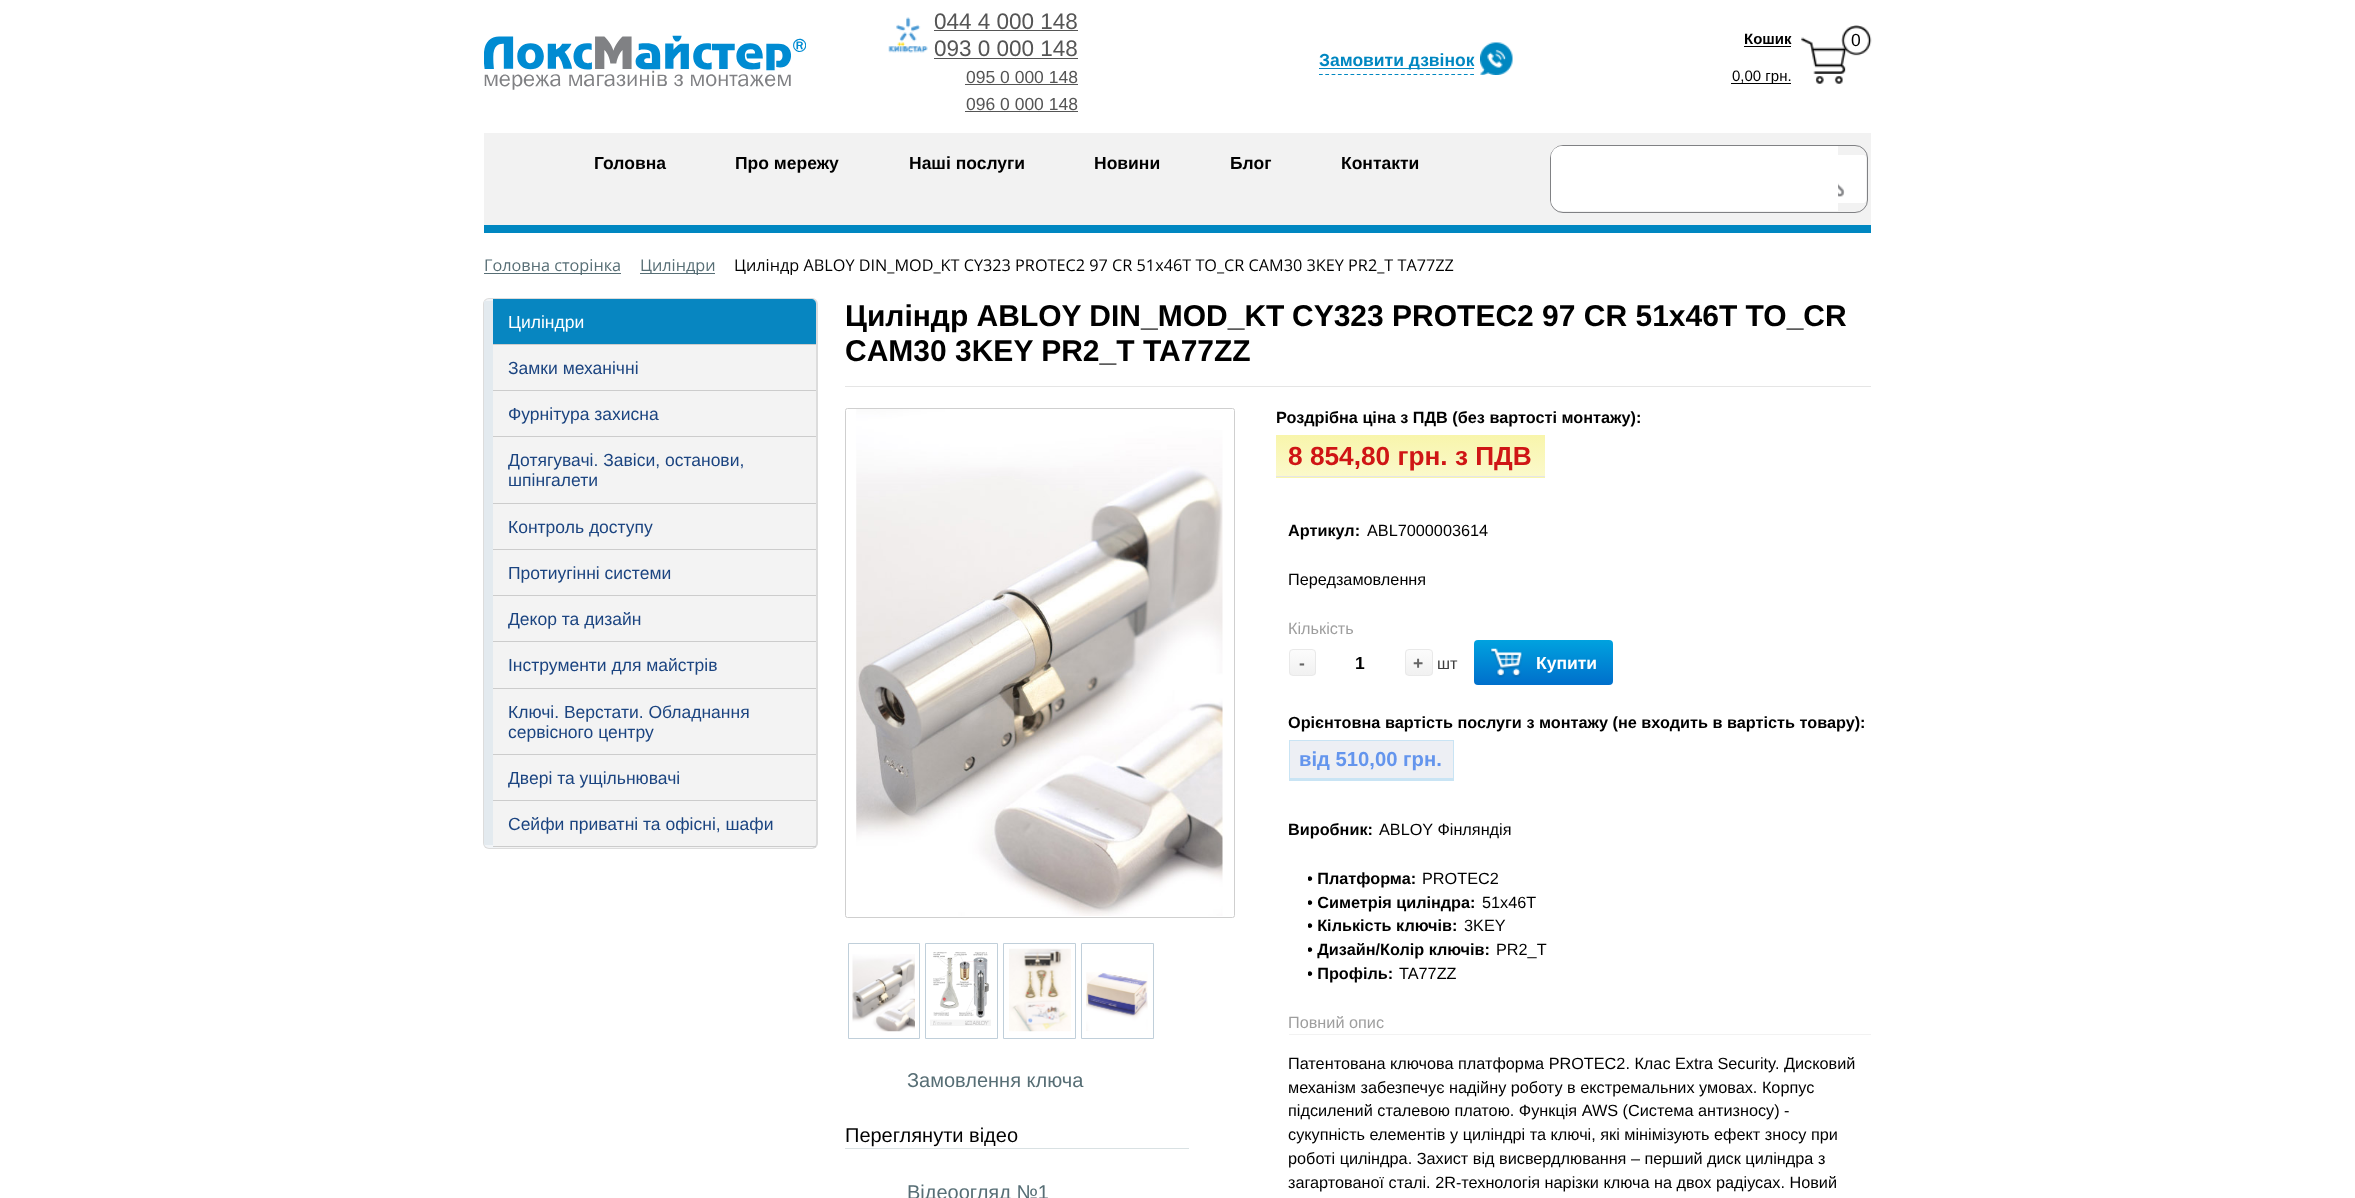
<svg xmlns="http://www.w3.org/2000/svg" width="2355" height="1198" viewBox="0 0 2355 1198">
  <defs>
    <linearGradient id="g1" gradientUnits="userSpaceOnUse" x1="1411" y1="435" x2="1411" y2="476"><stop offset="0" stop-color="#f8f5ab"/><stop offset="1" stop-color="#fbf9cb"/></linearGradient>
    <linearGradient id="g2" gradientUnits="userSpaceOnUse" x1="1411" y1="476" x2="1411" y2="518"><stop offset="0" stop-color="#f8f5ab"/><stop offset="1" stop-color="#fbf9cb"/></linearGradient>
    <clipPath id="clip1"><rect x="1289" y="649" width="27" height="27" rx="4"/></clipPath>
    <linearGradient id="g3" gradientUnits="userSpaceOnUse" x1="1303" y1="650" x2="1303" y2="675"><stop offset="0" stop-color="#fcfcfc"/><stop offset="1" stop-color="#f1f1f1"/></linearGradient>
    <clipPath id="clip2"><rect x="1405" y="649" width="28" height="27" rx="4"/></clipPath>
    <linearGradient id="g4" gradientUnits="userSpaceOnUse" x1="1419" y1="650" x2="1419" y2="675"><stop offset="0" stop-color="#fcfcfc"/><stop offset="1" stop-color="#f1f1f1"/></linearGradient>
    <linearGradient id="g5" gradientUnits="userSpaceOnUse" x1="1543" y1="640" x2="1543" y2="685"><stop offset="0" stop-color="#00a2df"/><stop offset="1" stop-color="#006fcb"/></linearGradient>
    <clipPath id="clip3"><path d="M1308 866h563v119H1308z"/></clipPath>
  </defs>
  <rect width="100%" height="100%" fill="#fff"/>
  <image x="484" y="35" width="322" height="55" href="img/1.png"/>
  <image x="888" y="17" width="40" height="36" href="img/2.png"/>
  <path d="M934 30h144v1H934z" fill="#555"/>
  <path d="M934 58h144v1H934z" fill="#555"/>
  <path d="M965 84h113v1H965z" fill="#555"/>
  <path d="M965 111h113v1H965z" fill="#555"/>
  <path d="M1319 74.5H1474" fill="none" stroke="#0087c1" stroke-width="1.2" stroke-dasharray="3.75 2.55"/>
  <path d="M1319 68h155v1H1319z" fill="#0087c1"/>
  <image x="1480" y="42" width="33" height="33" href="img/3.png"/>
  <path d="M1744 46h47v1H1744z" fill="#000"/>
  <path d="M1731 83h60v1H1731z" fill="#000"/>
  <image x="1801" y="25" width="71" height="59" href="img/4.png"/>
  <path d="M484 133h1387v92H484z" fill="#f2f2f2"/>
  <path d="M484 225h1387v8H484z" fill="#0087c1"/>
  <rect x="1550.5" y="145.5" width="317" height="67" rx="12.5" fill="none" stroke="#808184"/>
  <path d="M1808 155H1863.5C1865 155 1866 156 1866 157.5V200.5C1866 202 1865 203 1863.5 203H1808Z" fill="#fff"/>
  <path d="M1562 146H1838V211H1562C1556 211 1551 206 1551 200V157C1551 151 1556 146 1562 146Z" fill="#fff"/>
  <image x="1838" y="183" width="7" height="14" href="img/5.png"/>
  <path d="M484 273h137v1H484z" fill="#576e75"/>
  <path d="M640 273h75v1H640z" fill="#576e75"/>
  <rect x="483" y="298" width="335" height="551" rx="6" fill="#dcdcdc" filter="blur(0.5px)"/>
  <rect x="484" y="299" width="332" height="549" rx="5" fill="#f1f4f7"/>
  <path d="M484 301h9v544H484z" fill="#e3eaef"/>
  <rect x="493" y="299" width="323" height="549" rx="6" fill="#f3f3f3"/>
  <path d="M493 299H811C814 299 816 301 816 304V345H493Z" fill="#0786c1"/>
  <path d="M493 344h323v1H493z" fill="#ccc"/>
  <path d="M493 390h323v1H493z" fill="#ccc"/>
  <path d="M493 436h323v1H493z" fill="#ccc"/>
  <path d="M493 503h323v1H493z" fill="#ccc"/>
  <path d="M493 549h323v1H493z" fill="#ccc"/>
  <path d="M493 595h323v1H493z" fill="#ccc"/>
  <path d="M493 641h323v1H493z" fill="#ccc"/>
  <path d="M493 688h323v1H493z" fill="#ccc"/>
  <path d="M493 754h323v1H493z" fill="#ccc"/>
  <path d="M493 800h323v1H493z" fill="#ccc"/>
  <path d="M493 846h323v1H493z" fill="#ccc"/>
  <path d="M845 386h1026v1H845z" fill="#e5e5e5"/>
  <rect x="845.5" y="408.5" width="389" height="509" rx="2" fill="none" stroke="#cfcfcf"/>
  <image x="856" y="409" width="367" height="507" href="img/6.png"/>
  <path d="M848.5 943.5h71v95H848.5z" fill="none" stroke="#c0cfda"/>
  <image x="852" y="954" width="63" height="78" href="img/7.png"/>
  <path d="M925.5 943.5h72v95H925.5z" fill="none" stroke="#c0cfda"/>
  <image x="930" y="952" width="61" height="74" href="img/8.png"/>
  <path d="M1003.5 943.5h72v95H1003.5z" fill="none" stroke="#c0cfda"/>
  <image x="1009" y="948" width="62" height="84" href="img/9.png"/>
  <path d="M1081.5 943.5h72v95H1081.5z" fill="none" stroke="#c0cfda"/>
  <image x="1086" y="972" width="62" height="59" href="img/10.png"/>
  <path d="M845 1148h344v1H845z" fill="#d9e1e3"/>
  <path d="M1276 435h269v41H1276z" fill="url(#g1)"/>
  <path d="M1276 477h269v1H1276z" fill="url(#g2)"/>
  <path d="M1276 476h269v1H1276z" fill="#e6e6e6"/>
  <g clip-path="url(#clip1)">
    <path d="M1289 650h27v25H1289z" fill="url(#g3)"/>
  </g>
  <rect x="1289.5" y="649.5" width="26" height="26" rx="3.5" fill="none" stroke="#e9e9e9"/>
  <g clip-path="url(#clip2)">
    <path d="M1405 650h28v25H1405z" fill="url(#g4)"/>
  </g>
  <rect x="1405.5" y="649.5" width="27" height="26" rx="3.5" fill="none" stroke="#e9e9e9"/>
  <rect x="1474" y="640" width="139" height="45" rx="4" fill="url(#g5)"/>
  <image x="1490" y="648" width="33" height="30" href="img/11.png"/>
  <path d="M1290 741h163v37H1290z" fill="#edeff4"/>
  <path d="M1289 740h165v1H1289z" fill="#c9e4f4"/>
  <path d="M1453 740h1v40H1453z" fill="#c9e4f4"/>
  <path d="M1289 778h165v3H1289z" fill="#c9e4f4"/>
  <path d="M1289 740h1v40H1289z" fill="#c9e4f4"/>
  <path d="M1289 1034h582v1H1289z" fill="#f2f2f2"/>
  <g font-family="Liberation Sans" font-size="22.5" fill="#555">
    <text x="934" y="29">044 4 000 148</text>
    <text x="934" y="56">093 0 000 148</text>
  </g>
  <g font-family="Liberation Sans" font-size="17.5" fill="#555">
    <text x="966" y="83">095 0 000 148</text>
    <text x="966" y="110">096 0 000 148</text>
  </g>
  <text x="1319" y="66" font-family="Liberation Sans" font-size="17.5" font-weight="bold" fill="#0087c1">Замовити дзвінок</text>
  <text x="1744" y="44" font-family="Liberation Sans" font-size="15" font-weight="bold" fill="#000">Кошик</text>
  <text x="1732" y="81" font-family="Liberation Sans" font-size="15" fill="#000">0,00 грн.</text>
  <text x="1851" y="46" font-family="Liberation Sans" font-size="17.5" fill="#000">0</text>
  <g font-family="Liberation Sans" font-size="17.5" font-weight="bold" fill="#000">
    <text x="594" y="169">Головна</text>
    <text x="735" y="169">Про мережу</text>
    <text x="909" y="169">Наші послуги</text>
    <text x="1094" y="169">Новини</text>
    <text x="1230" y="169">Блог</text>
    <text x="1341" y="169">Контакти</text>
  </g>
  <g font-family="Open Sans" font-size="16.25" fill="#576e75">
    <text x="484" y="271">Головна сторінка</text>
    <text x="640" y="271">Циліндри</text>
  </g>
  <text x="734" y="271" font-family="Open Sans" font-size="16.25" fill="#000">Циліндр ABLOY DIN_MOD_KT CY323 PROTEC2 97 CR 51x46T TO_CR CAM30 3KEY PR2_T TA77ZZ</text>
  <text x="508" y="328" font-family="Liberation Sans" font-size="17.5" fill="#fff">Циліндри</text>
  <g font-family="Liberation Sans" font-size="17.5" fill="#1b4480">
    <text x="508" y="374">Замки механічні</text>
    <text x="508" y="420">Фурнітура захисна</text>
    <text x="508" y="466">Дотягувачі. Завіси, останови,</text>
    <text x="508" y="486">шпінгалети</text>
    <text x="508" y="533">Контроль доступу</text>
    <text x="508" y="579">Протиугінні системи</text>
    <text x="508" y="625">Декор та дизайн</text>
    <text x="508" y="671">Інструменти для майстрів</text>
    <text x="508" y="718">Ключі. Верстати. Обладнання</text>
    <text x="508" y="738">сервісного центру</text>
    <text x="508" y="784">Двері та ущільнювачі</text>
    <text x="508" y="830">Сейфи приватні та офісні, шафи</text>
  </g>
  <g font-family="Liberation Sans" font-size="30" font-weight="bold" fill="#000">
    <text x="845" y="326">Циліндр ABLOY DIN_MOD_KT</text>
    <text x="1292" y="326">CY323 PROTEC2 97 CR 51x46T TO_CR</text>
    <text x="845" y="361">CAM30 3KEY PR2_T TA77ZZ</text>
  </g>
  <text x="907" y="1087" font-family="Liberation Sans" font-size="20" fill="#576e75">Замовлення ключа</text>
  <text x="845" y="1142" font-family="Liberation Sans" font-size="20" fill="#000">Переглянути відео</text>
  <text x="907" y="1199" font-family="Liberation Sans" font-size="20" fill="#576e75">Відеоогляд №1</text>
  <text x="1276" y="423" font-family="Liberation Sans" font-size="16.25" font-weight="bold" fill="#000">Роздрібна ціна з ПДВ (без вартості монтажу):</text>
  <text x="1288" y="465" font-family="Liberation Sans" font-size="26.25" font-weight="bold" fill="#cf1515">8 854,80 грн. з ПДВ</text>
  <text x="1288" y="536" font-family="Liberation Sans" font-size="16.25" font-weight="bold" fill="#000">Артикул:</text>
  <g font-family="Liberation Sans" font-size="16.25" fill="#000">
    <text x="1367" y="536">ABL7000003614</text>
    <text x="1288" y="585">Передзамовлення</text>
  </g>
  <text x="1288" y="634" font-family="Liberation Sans" font-size="16.25" fill="#9e9e9e">Кількість</text>
  <text x="1299" y="669" font-family="Liberation Sans" font-size="17.5" font-weight="bold" fill="#656565">-</text>
  <text x="1355" y="669" font-family="Liberation Sans" font-size="17.5" font-weight="bold" fill="#000">1</text>
  <text x="1413" y="669" font-family="Liberation Sans" font-size="17.5" font-weight="bold" fill="#656565">+</text>
  <text x="1437" y="669" font-family="Liberation Sans" font-size="16.25" fill="#3f3f3f">шт</text>
  <text x="1536" y="669" font-family="Liberation Sans" font-size="17.5" font-weight="bold" fill="#fff">Купити</text>
  <text x="1288" y="728" font-family="Liberation Sans" font-size="16.25" font-weight="bold" fill="#000">Орієнтовна вартість послуги з монтажу (не входить в вартість товару):</text>
  <text x="1299" y="766" font-family="Liberation Sans" font-size="20.25" font-weight="bold" fill="#6495ed">від 510,00 грн.</text>
  <text x="1288" y="835" font-family="Liberation Sans" font-size="16.25" font-weight="bold" fill="#000">Виробник:</text>
  <text x="1379" y="835" font-family="Liberation Sans" font-size="16.25" fill="#000">ABLOY Фінляндія</text>
  <g clip-path="url(#clip3)">
    <text x="1307" y="884" font-family="Liberation Sans" font-size="16.25" font-weight="bold" fill="#000">• Платформа:</text>
  </g>
  <text x="1422" y="884" font-family="Liberation Sans" font-size="16.25" fill="#000">PROTEC2</text>
  <g clip-path="url(#clip3)">
    <text x="1307" y="908" font-family="Liberation Sans" font-size="16.25" font-weight="bold" fill="#000">• Симетрія циліндра:</text>
  </g>
  <text x="1482" y="908" font-family="Liberation Sans" font-size="16.25" fill="#000">51x46T</text>
  <g clip-path="url(#clip3)">
    <text x="1307" y="931" font-family="Liberation Sans" font-size="16.25" font-weight="bold" fill="#000">• Кількість ключів:</text>
  </g>
  <text x="1464" y="931" font-family="Liberation Sans" font-size="16.25" fill="#000">3KEY</text>
  <g clip-path="url(#clip3)">
    <text x="1307" y="955" font-family="Liberation Sans" font-size="16.25" font-weight="bold" fill="#000">• Дизайн/Колір ключів:</text>
  </g>
  <text x="1496" y="955" font-family="Liberation Sans" font-size="16.25" fill="#000">PR2_T</text>
  <g clip-path="url(#clip3)">
    <text x="1307" y="979" font-family="Liberation Sans" font-size="16.25" font-weight="bold" fill="#000">• Профіль:</text>
  </g>
  <text x="1399" y="979" font-family="Liberation Sans" font-size="16.25" fill="#000">TA77ZZ</text>
  <text x="1288" y="1028" font-family="Liberation Sans" font-size="16.25" fill="#9e9e9e">Повний опис</text>
  <g font-family="Liberation Sans" font-size="16.25" fill="#000">
    <text x="1288" y="1069">Патентована ключова платформа PROTEC2. Клас Extra Security. Дисковий</text>
    <text x="1288" y="1093">механізм забезпечує надійну роботу в екстремальних умовах. Корпус</text>
    <text x="1288" y="1116">підсилений сталевою платою. Функція AWS (Система антизносу) -</text>
    <text x="1288" y="1140">сукупність елементів у циліндрі та ключі, які мінімізують ефект зносу при</text>
    <text x="1288" y="1164">роботі циліндра. Захист від висвердлювання – перший диск циліндра з</text>
    <text x="1288" y="1188">загартованої сталі. 2R-технологія нарізки ключа на двох радіусах. Новий</text>
  </g>
</svg>
